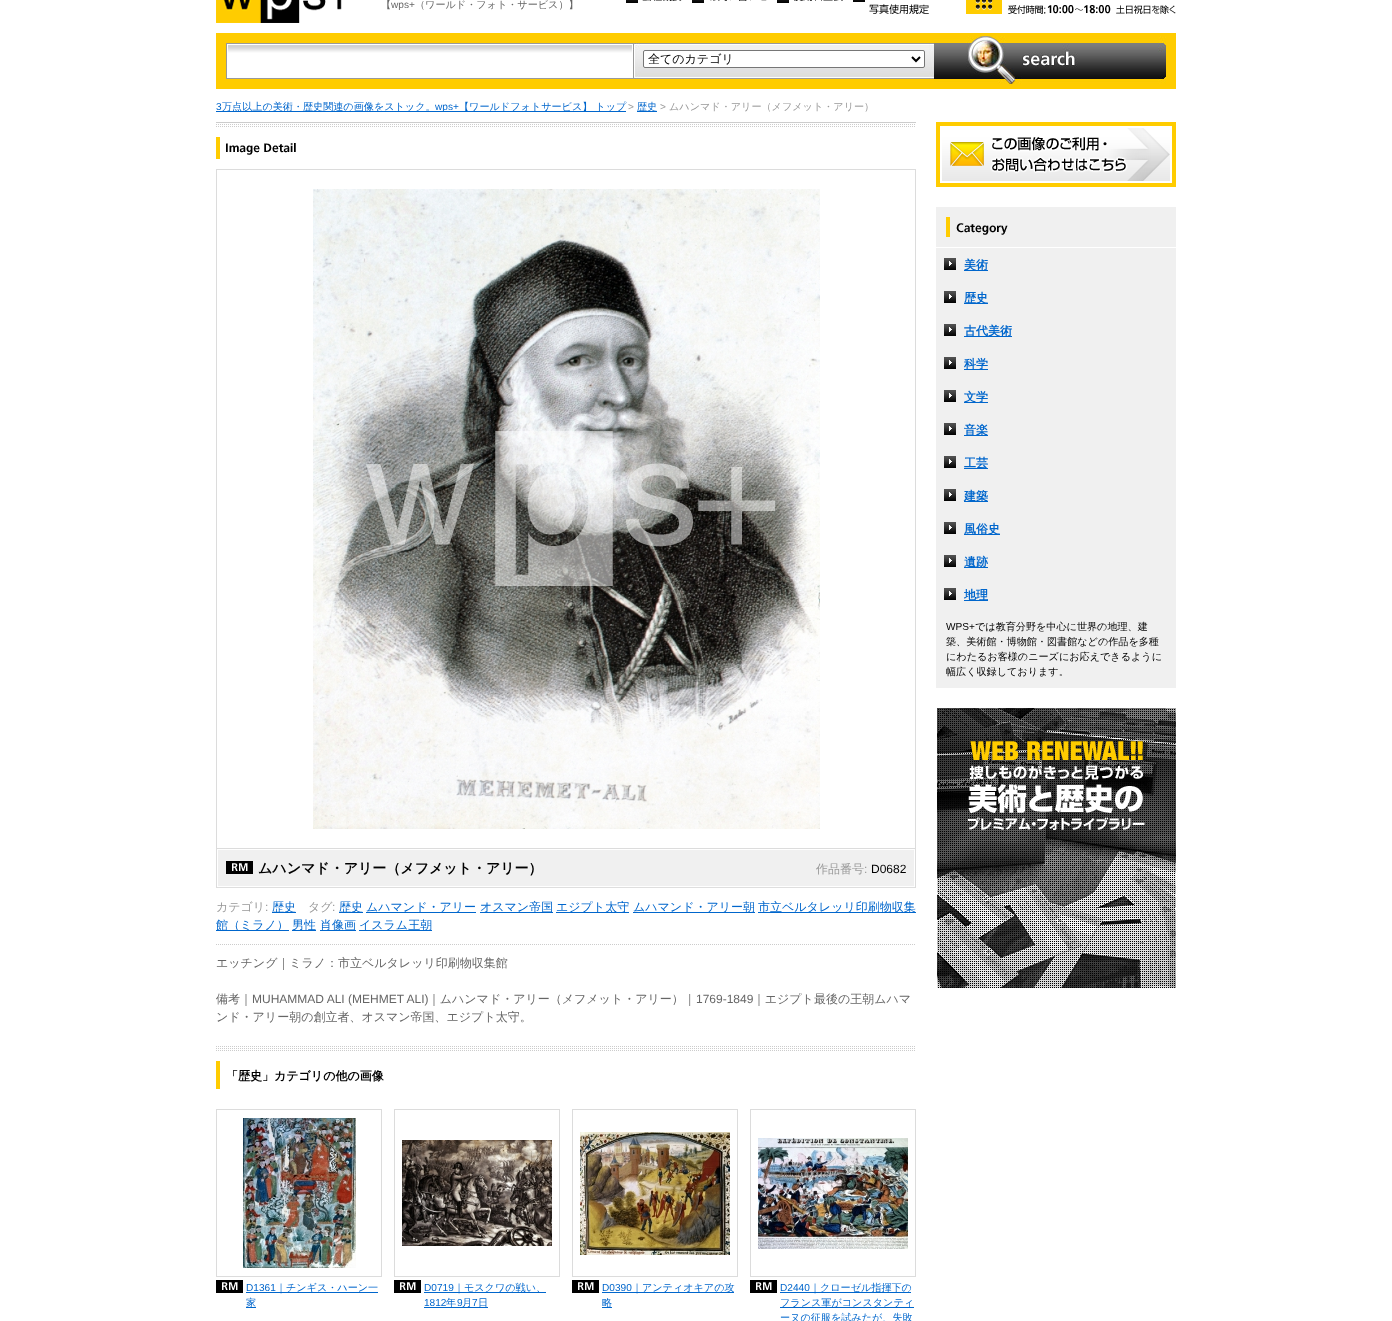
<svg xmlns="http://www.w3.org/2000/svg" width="1392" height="1321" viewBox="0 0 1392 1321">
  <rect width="100%" height="100%" fill="#fff"/>
  <image x="216" y="0" width="126" height="23" href="img/1.png"/>
  <image x="626" y="0" width="56" height="3" href="img/2.png"/>
  <image x="692" y="0" width="75" height="3" href="img/3.png"/>
  <image x="777" y="0" width="66" height="3" href="img/4.png"/>
  <image x="853" y="0" width="76" height="14" href="img/5.png"/>
  <image x="966" y="0" width="210" height="14" href="img/6.png"/>
  <path d="M216 33h960v56H216z" fill="#fc0"/>
  <image x="226" y="43" width="407" height="36" href="img/7.png"/>
  <image x="633" y="43" width="301" height="36" href="img/8.png"/>
  <rect x="643.5" y="50.5" width="281" height="17" rx="1.5" fill="#fff" stroke="#767676"/>
  <path d="M912 57L916 61L920 57" fill="none" stroke="#000" stroke-width="2"/>
  <image x="934" y="36" width="232" height="48" href="img/9.png"/>
  <path d="M216 111h410v1H216z" fill="#06c"/>
  <path d="M637 111h20v1H637z" fill="#06c"/>
  <image x="936" y="122" width="240" height="65" href="img/10.png"/>
  <image x="936" y="207" width="240" height="40" href="img/11.png"/>
  <path d="M936 248h240v440H936z" fill="#f0f0f0"/>
  <image x="944" y="258" width="12" height="12" href="img/12.png"/>
  <path d="M964 270h24v1H964z" fill="#06c"/>
  <image x="944" y="291" width="12" height="12" href="img/12.png"/>
  <path d="M964 303h24v1H964z" fill="#06c"/>
  <image x="944" y="324" width="12" height="12" href="img/12.png"/>
  <path d="M964 336h48v1H964z" fill="#06c"/>
  <image x="944" y="357" width="12" height="12" href="img/12.png"/>
  <path d="M964 369h24v1H964z" fill="#06c"/>
  <image x="944" y="390" width="12" height="12" href="img/12.png"/>
  <path d="M964 402h24v1H964z" fill="#06c"/>
  <image x="944" y="423" width="12" height="12" href="img/12.png"/>
  <path d="M964 435h24v1H964z" fill="#06c"/>
  <image x="944" y="456" width="12" height="12" href="img/12.png"/>
  <path d="M964 468h24v1H964z" fill="#06c"/>
  <image x="944" y="489" width="12" height="12" href="img/12.png"/>
  <path d="M964 501h24v1H964z" fill="#06c"/>
  <image x="944" y="522" width="12" height="12" href="img/12.png"/>
  <path d="M964 534h36v1H964z" fill="#06c"/>
  <image x="944" y="555" width="12" height="12" href="img/12.png"/>
  <path d="M964 567h24v1H964z" fill="#06c"/>
  <image x="944" y="588" width="12" height="12" href="img/12.png"/>
  <path d="M964 600h24v1H964z" fill="#06c"/>
  <image x="937" y="708" width="239" height="280" href="img/13.png"/>
  <image x="216" y="122" width="700" height="5" href="img/14.png"/>
  <path d="M216 137h4v22H216z" fill="#fc0"/>
  <image x="226" y="143" width="70" height="12" href="img/15.png"/>
  <path d="M216 169h700v1H216z" fill="#dcdcdc"/>
  <path d="M915 169h1v680H915z" fill="#dcdcdc"/>
  <path d="M216 169h1v680H216z" fill="#dcdcdc"/>
  <image x="313" y="189" width="507" height="640" href="img/16.png"/>
  <image x="216" y="848" width="700" height="40" href="img/17.png"/>
  <image x="217" y="848" width="698" height="2" href="img/18.png"/>
  <image x="226" y="861" width="27" height="13" href="img/19.png"/>
  <path d="M272 912h24v1H272z" fill="#06c"/>
  <path d="M339 912h24v1H339z" fill="#06c"/>
  <path d="M366 912h110v1H366z" fill="#06c"/>
  <path d="M480 912h73v1H480z" fill="#06c"/>
  <path d="M556 912h73v1H556z" fill="#06c"/>
  <path d="M633 912h122v1H633z" fill="#06c"/>
  <path d="M758 912h158v1H758z" fill="#06c"/>
  <path d="M216 930h73v1H216z" fill="#06c"/>
  <path d="M292 930h24v1H292z" fill="#06c"/>
  <path d="M320 930h36v1H320z" fill="#06c"/>
  <path d="M359 930h73v1H359z" fill="#06c"/>
  <image x="216" y="944" width="699" height="1" href="img/20.png"/>
  <image x="216" y="1046" width="699" height="5" href="img/21.png"/>
  <path d="M216 1061h4v28H216z" fill="#fc0"/>
  <path d="M216 1109h166v1H216z" fill="#dcdcdc"/>
  <path d="M381 1109h1v168H381z" fill="#dcdcdc"/>
  <path d="M216 1276h166v1H216z" fill="#dcdcdc"/>
  <path d="M216 1109h1v168H216z" fill="#dcdcdc"/>
  <image x="243" y="1118" width="113" height="150" href="img/22.png"/>
  <image x="216" y="1280" width="27" height="13" href="img/19.png"/>
  <path d="M246 1292h132v1H246z" fill="#06c"/>
  <path d="M246 1307h10v1H246z" fill="#06c"/>
  <path d="M394 1109h166v1H394z" fill="#dcdcdc"/>
  <path d="M559 1109h1v168H559z" fill="#dcdcdc"/>
  <path d="M394 1276h166v1H394z" fill="#dcdcdc"/>
  <path d="M394 1109h1v168H394z" fill="#dcdcdc"/>
  <image x="402" y="1140" width="150" height="106" href="img/23.png"/>
  <image x="394" y="1280" width="27" height="13" href="img/19.png"/>
  <path d="M424 1292h122v1H424z" fill="#06c"/>
  <path d="M424 1307h64v1H424z" fill="#06c"/>
  <path d="M572 1109h166v1H572z" fill="#dcdcdc"/>
  <path d="M737 1109h1v168H737z" fill="#dcdcdc"/>
  <path d="M572 1276h166v1H572z" fill="#dcdcdc"/>
  <path d="M572 1109h1v168H572z" fill="#dcdcdc"/>
  <image x="580" y="1132" width="150" height="123" href="img/24.png"/>
  <image x="572" y="1280" width="27" height="13" href="img/19.png"/>
  <path d="M602 1292h132v1H602z" fill="#06c"/>
  <path d="M602 1307h10v1H602z" fill="#06c"/>
  <path d="M750 1109h166v1H750z" fill="#dcdcdc"/>
  <path d="M915 1109h1v168H915z" fill="#dcdcdc"/>
  <path d="M750 1276h166v1H750z" fill="#dcdcdc"/>
  <path d="M750 1109h1v168H750z" fill="#dcdcdc"/>
  <image x="758" y="1138" width="150" height="111" href="img/25.png"/>
  <image x="750" y="1280" width="27" height="13" href="img/19.png"/>
  <path d="M780 1292h131v1H780z" fill="#06c"/>
  <path d="M780 1307h134v1H780z" fill="#06c"/>
  <text x="381" y="8" font-family="WenQuanYi Zen Hei" font-size="10.1" font-weight="500" fill="#666">【</text>
  <text x="391" y="8" font-family="Liberation Sans" font-size="10.1" fill="#666">wps+</text>
  <text x="415" y="8" font-family="WenQuanYi Zen Hei" font-size="10.1" font-weight="500" fill="#666">（ワールド・フォト・サービス）】</text>
  <text x="648" y="63" font-family="WenQuanYi Zen Hei" font-size="12" font-weight="500" fill="#000">全てのカテゴリ</text>
  <text x="216" y="110" font-family="Liberation Sans" font-size="10.1" fill="#06c">3</text>
  <text x="222" y="110" font-family="WenQuanYi Zen Hei" font-size="10.1" font-weight="500" fill="#06c">万点以上の美術・歴史関連の画像をストック。</text>
  <text x="435" y="110" font-family="Liberation Sans" font-size="10.1" fill="#06c">wps+</text>
  <text x="459" y="110" font-family="WenQuanYi Zen Hei" font-size="10.1" font-weight="500" fill="#06c">【ワールドフォトサービス】 トップ</text>
  <text x="628" y="110" font-family="Liberation Sans" font-size="10.1" fill="#999">&gt;</text>
  <text x="637" y="110" font-family="WenQuanYi Zen Hei" font-size="10.1" font-weight="500" fill="#06c">歴史</text>
  <text x="660" y="110" font-family="Liberation Sans" font-size="10.1" fill="#999">&gt;</text>
  <text x="669" y="110" font-family="WenQuanYi Zen Hei" font-size="10.1" font-weight="500" fill="#999">ムハンマド・アリー（メフメット・アリー）</text>
  <g font-family="WenQuanYi Zen Hei" font-size="12" font-weight="bold" fill="#06c">
    <text x="964" y="269">美術</text>
    <text x="964" y="302">歴史</text>
    <text x="964" y="335">古代美術</text>
    <text x="964" y="368">科学</text>
    <text x="964" y="401">文学</text>
    <text x="964" y="434">音楽</text>
    <text x="964" y="467">工芸</text>
    <text x="964" y="500">建築</text>
    <text x="964" y="533">風俗史</text>
    <text x="964" y="566">遺跡</text>
    <text x="964" y="599">地理</text>
  </g>
  <text x="946" y="630" font-family="Liberation Sans" font-size="10.1" fill="#000">WPS+</text>
  <g font-family="WenQuanYi Zen Hei" font-size="10.1" font-weight="500" fill="#000">
    <text x="975" y="630">では教育分野を中心に世界の地理、建</text>
    <text x="946" y="645">築、美術館・博物館・図書館などの作品を多種</text>
    <text x="946" y="660">にわたるお客様のニーズにお応えできるように</text>
    <text x="946" y="675">幅広く収録しております。</text>
  </g>
  <text x="258" y="873" font-family="WenQuanYi Zen Hei" font-size="14" font-weight="bold" fill="#000">ムハンマド・アリー（メフメット・アリー）</text>
  <text x="816" y="873" font-family="WenQuanYi Zen Hei" font-size="12" font-weight="500" fill="#999">作品番号</text>
  <text x="864" y="873" font-family="Liberation Sans" font-size="12" fill="#999">:</text>
  <text x="871" y="873" font-family="Liberation Sans" font-size="12" fill="#000">D0682</text>
  <text x="216" y="911" font-family="WenQuanYi Zen Hei" font-size="12" font-weight="500" fill="#999">カテゴリ</text>
  <text x="265" y="911" font-family="Liberation Sans" font-size="12" fill="#999">:</text>
  <text x="272" y="911" font-family="WenQuanYi Zen Hei" font-size="12" font-weight="500" fill="#06c">歴史</text>
  <text x="308" y="911" font-family="WenQuanYi Zen Hei" font-size="12" font-weight="500" fill="#999">タグ</text>
  <text x="332" y="911" font-family="Liberation Sans" font-size="12" fill="#999">:</text>
  <g font-family="WenQuanYi Zen Hei" font-size="12" font-weight="500" fill="#06c">
    <text x="339" y="911">歴史</text>
    <text x="366" y="911">ムハマンド・アリー</text>
    <text x="480" y="911">オスマン帝国</text>
    <text x="556" y="911">エジプト太守</text>
    <text x="633" y="911">ムハマンド・アリー朝</text>
    <text x="758" y="911">市立ベルタレッリ印刷物収集</text>
    <text x="216" y="929">館（ミラノ）</text>
    <text x="292" y="929">男性</text>
    <text x="320" y="929">肖像画</text>
    <text x="359" y="929">イスラム王朝</text>
  </g>
  <g font-family="WenQuanYi Zen Hei" font-size="12" font-weight="500" fill="#666">
    <text x="216" y="967">エッチング｜ミラノ：市立ベルタレッリ印刷物収集館</text>
    <text x="216" y="1003">備考｜</text>
  </g>
  <text x="252" y="1003" font-family="Liberation Sans" font-size="12" fill="#666">MUHAMMAD ALI (MEHMET ALI)</text>
  <text x="428" y="1003" font-family="WenQuanYi Zen Hei" font-size="12" font-weight="500" fill="#666">｜ムハンマド・アリー（メフメット・アリー）｜</text>
  <text x="696" y="1003" font-family="Liberation Sans" font-size="12" fill="#666">1769-1849</text>
  <g font-family="WenQuanYi Zen Hei" font-size="12" font-weight="500" fill="#666">
    <text x="753" y="1003">｜エジプト最後の王朝ムハマ</text>
    <text x="216" y="1021">ンド・アリー朝の創立者、オスマン帝国、エジプト太守。</text>
  </g>
  <text x="226" y="1080" font-family="WenQuanYi Zen Hei" font-size="12" font-weight="bold" fill="#000">「歴史」カテゴリの他の画像</text>
  <text x="246" y="1291" font-family="Liberation Sans" font-size="10.1" fill="#06c">D1361</text>
  <g font-family="WenQuanYi Zen Hei" font-size="10.1" font-weight="500" fill="#06c">
    <text x="276" y="1291">｜チンギス・ハーン一</text>
    <text x="246" y="1306">家</text>
  </g>
  <text x="424" y="1291" font-family="Liberation Sans" font-size="10.1" fill="#06c">D0719</text>
  <text x="454" y="1291" font-family="WenQuanYi Zen Hei" font-size="10.1" font-weight="500" fill="#06c">｜モスクワの戦い、</text>
  <text x="424" y="1306" font-family="Liberation Sans" font-size="10.1" fill="#06c">1812</text>
  <text x="446" y="1306" font-family="WenQuanYi Zen Hei" font-size="10.1" font-weight="500" fill="#06c">年</text>
  <text x="457" y="1306" font-family="Liberation Sans" font-size="10.1" fill="#06c">9</text>
  <text x="462" y="1306" font-family="WenQuanYi Zen Hei" font-size="10.1" font-weight="500" fill="#06c">月</text>
  <text x="472" y="1306" font-family="Liberation Sans" font-size="10.1" fill="#06c">7</text>
  <text x="478" y="1306" font-family="WenQuanYi Zen Hei" font-size="10.1" font-weight="500" fill="#06c">日</text>
  <text x="602" y="1291" font-family="Liberation Sans" font-size="10.1" fill="#06c">D0390</text>
  <g font-family="WenQuanYi Zen Hei" font-size="10.1" font-weight="500" fill="#06c">
    <text x="632" y="1291">｜アンティオキアの攻</text>
    <text x="602" y="1306">略</text>
  </g>
  <text x="780" y="1291" font-family="Liberation Sans" font-size="10.1" fill="#06c">D2440</text>
  <g font-family="WenQuanYi Zen Hei" font-size="10.1" font-weight="500" fill="#06c">
    <text x="810" y="1291">｜クローゼル指揮下の</text>
    <text x="780" y="1306">フランス軍がコンスタンティ</text>
    <text x="780" y="1321">ーヌの征服を試みたが、失敗</text>
  </g>
</svg>
